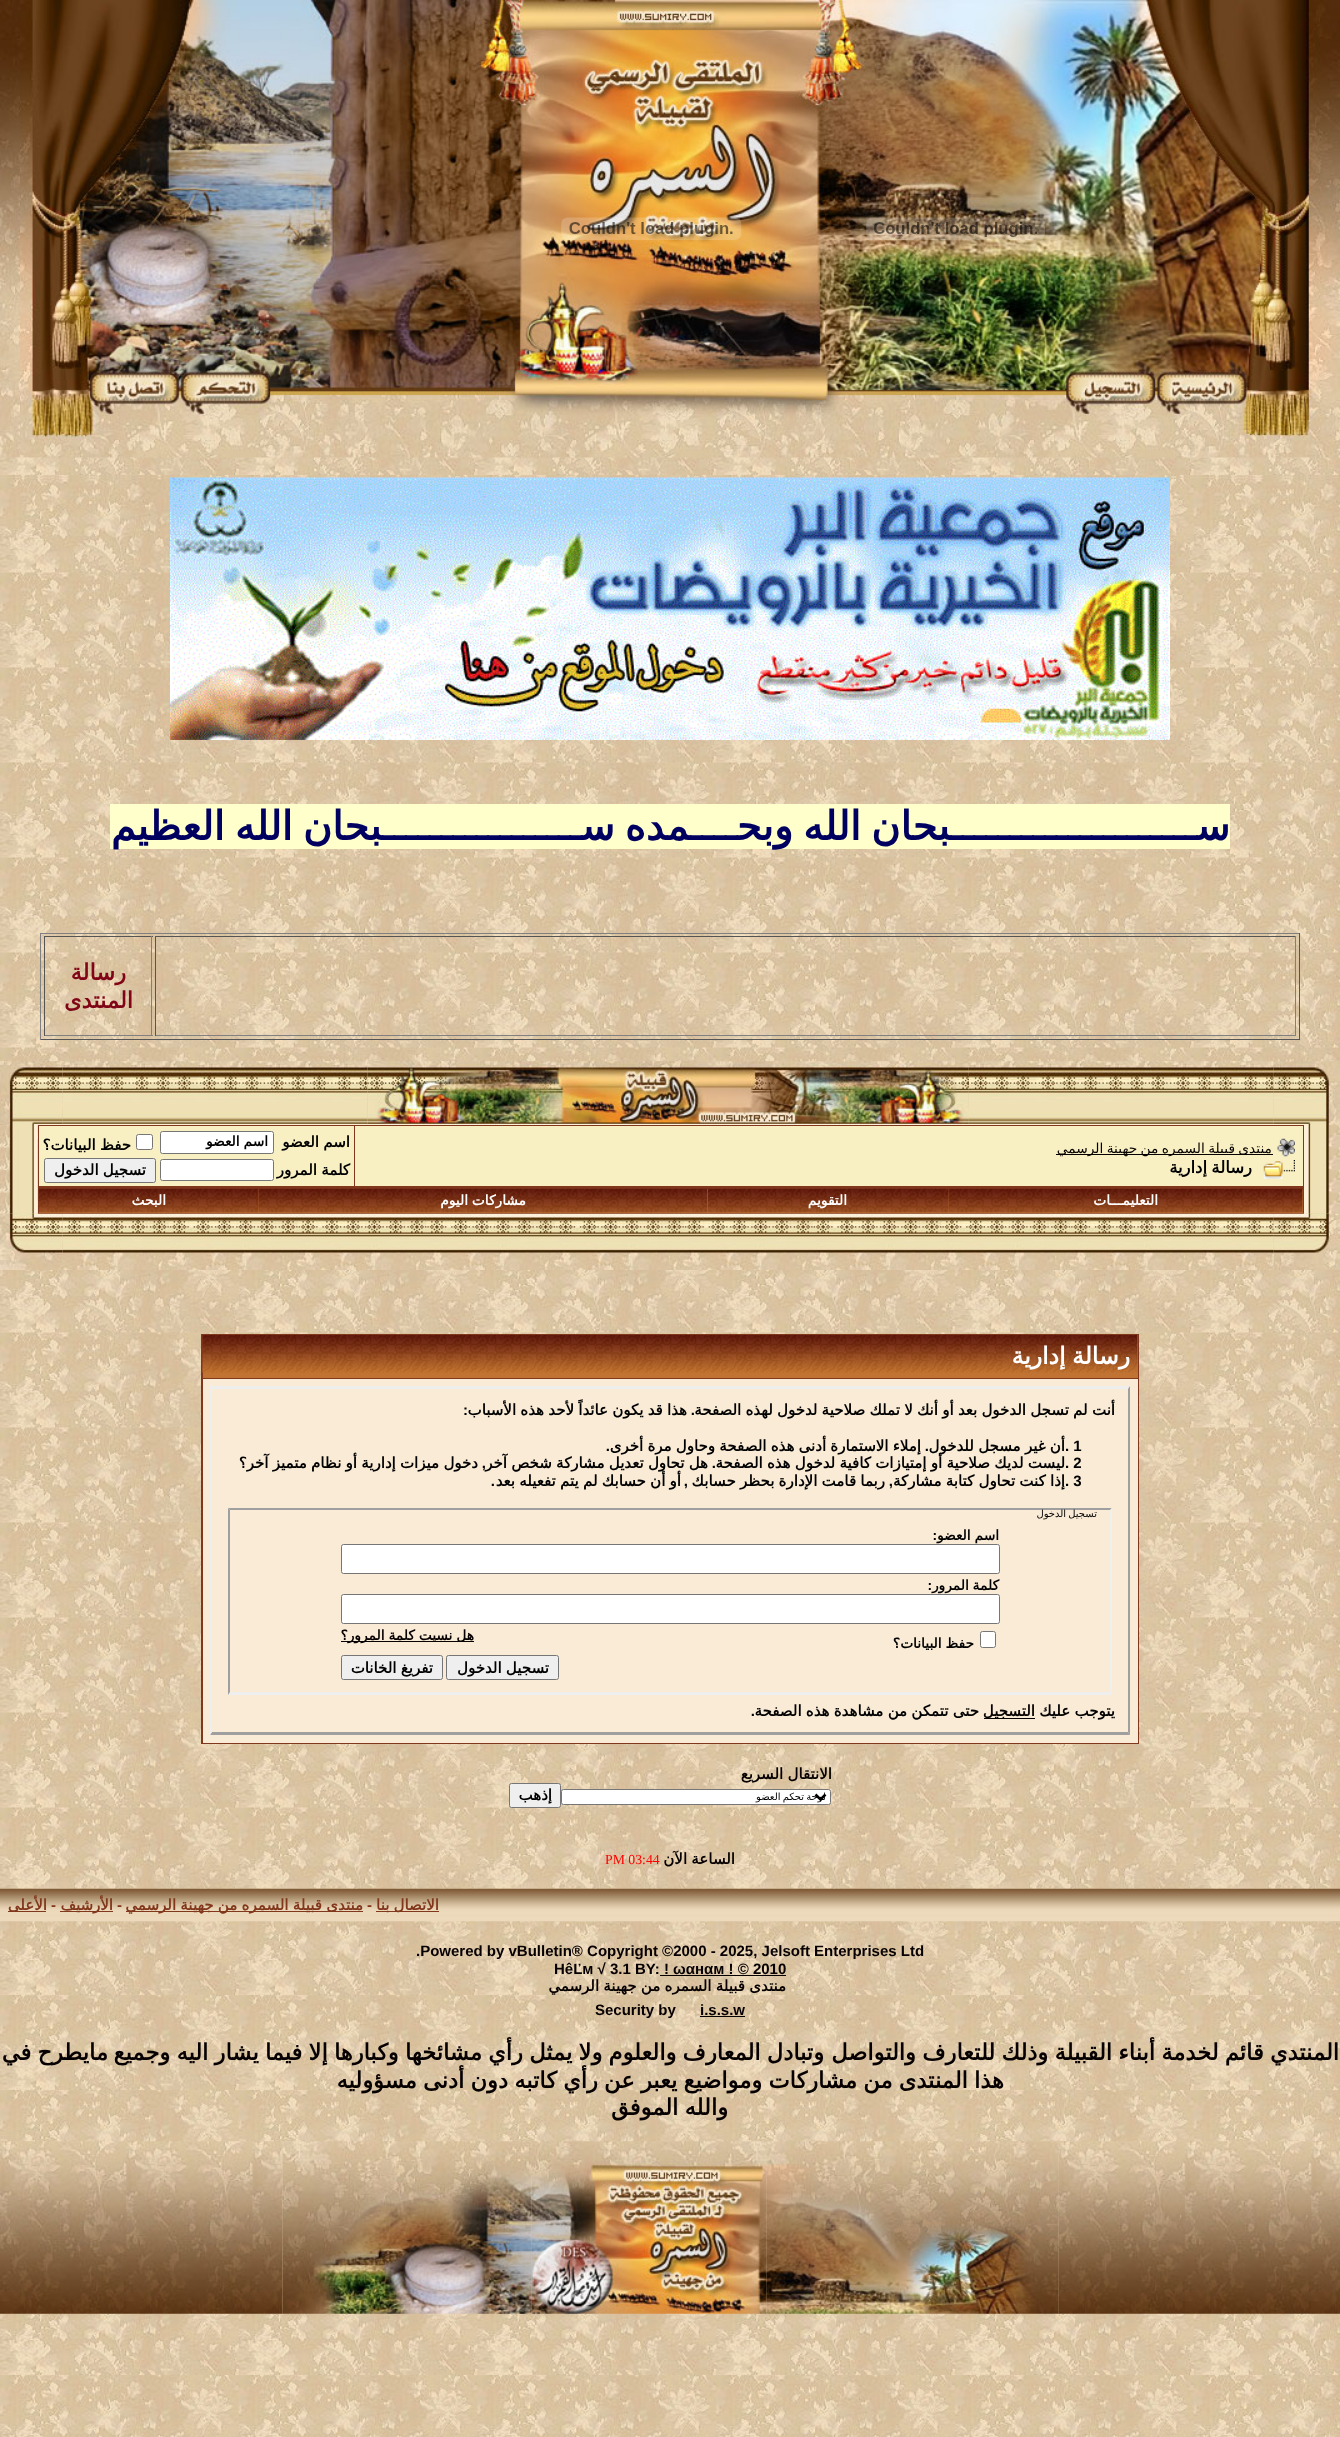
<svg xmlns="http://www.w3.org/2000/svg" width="1340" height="2437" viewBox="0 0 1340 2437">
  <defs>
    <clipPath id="clip1"><path d="M583 1790h242v14H583z"/></clipPath>
  </defs>
  <rect width="100%" height="100%" fill="#fff"/>
  <image x="0" y="457" width="1340" height="1980" href="img/1.png"/>
  <image x="1320" y="0" width="20" height="458" href="img/2.png"/>
  <image x="1085" y="0" width="235" height="458" href="img/3.png"/>
  <image x="825" y="0" width="260" height="458" href="img/4.png"/>
  <image x="866" y="217" width="179" height="23" href="img/5.png"/>
  <image x="475" y="0" width="350" height="458" href="img/6.png"/>
  <image x="561" y="217" width="181" height="23" href="img/7.png"/>
  <image x="20" y="0" width="455" height="458" href="img/8.png"/>
  <image x="0" y="0" width="20" height="458" href="img/9.png"/>
  <image x="0" y="477" width="1340" height="1412" href="img/10.png"/>
  <image x="170" y="477" width="1000" height="263" href="img/11.png"/>
  <path d="M110 804h1120v45H110z" fill="#ffc"/>
  <path d="M40 933h1260v1H40z" fill="#808080"/>
  <path d="M1299 933h1v107H1299z" fill="#555"/>
  <path d="M40 1039h1260v1H40z" fill="#555"/>
  <path d="M40 933h1v107H40z" fill="#808080"/>
  <path d="M155 936h1141v1H155z" fill="#555"/>
  <path d="M1295 936h1v100H1295z" fill="#808080"/>
  <path d="M155 1035h1141v1H155z" fill="#808080"/>
  <path d="M155 936h1v100H155z" fill="#555"/>
  <path d="M44 936h109v1H44z" fill="#555"/>
  <path d="M151 936h1v100H151z" fill="#808080"/>
  <path d="M44 1035h109v1H44z" fill="#808080"/>
  <path d="M44 936h1v100H44z" fill="#555"/>
  <image x="968" y="1061" width="306" height="64" href="img/13.png"/>
  <image x="1273" y="1061" width="67" height="64" href="img/12.png"/>
  <image x="62" y="1061" width="306" height="64" href="img/15.png"/>
  <image x="367" y="1061" width="602" height="64" href="img/14.png"/>
  <image x="0" y="1061" width="63" height="64" href="img/16.png"/>
  <image x="1304" y="1125" width="36" height="89" href="img/17.png"/>
  <path d="M38 1125h1266v89H38z" fill="#80371c"/>
  <path d="M355 1126h948v60H355z" fill="#f8f0c2"/>
  <image x="1277" y="1138" width="18" height="19" href="img/18.png"/>
  <path d="M1056 1154h217v1H1056z" fill="#060100"/>
  <image x="1263" y="1160" width="32" height="19" href="img/19.png"/>
  <path d="M39 1126h315v60H39z" fill="#f8f0c2"/>
  <rect x="160.5" y="1131.5" width="113" height="22" rx="2" fill="#fff" stroke="#767676"/>
  <rect x="136.5" y="1134.5" width="16" height="15" rx="2" fill="#fff" stroke="#767676"/>
  <rect x="160.5" y="1159.5" width="113" height="21" rx="2" fill="#fff" stroke="#767676"/>
  <rect x="44.5" y="1158.5" width="111" height="24" rx="2" fill="#efefef" stroke="#767676"/>
  <path d="M949 1189h354v24H949z" fill="#c17333"/>
  <image x="948" y="1188" width="355" height="25" href="img/20.png"/>
  <path d="M708 1189h241v24H708z" fill="#c17333"/>
  <image x="707" y="1188" width="242" height="25" href="img/21.png"/>
  <path d="M259 1189h449v24H259z" fill="#c17333"/>
  <image x="258" y="1188" width="450" height="25" href="img/22.png"/>
  <path d="M39 1189h220v24H39z" fill="#c17333"/>
  <image x="38" y="1188" width="221" height="25" href="img/23.png"/>
  <image x="0" y="1125" width="38" height="89" href="img/24.png"/>
  <image x="62" y="1213" width="1212" height="57" href="img/26.png"/>
  <image x="1273" y="1213" width="67" height="57" href="img/25.png"/>
  <image x="0" y="1213" width="63" height="57" href="img/27.png"/>
  <path d="M201 1334h938v410H201z" fill="#80371c"/>
  <path d="M203 1335h935v43H203z" fill="#c17333"/>
  <image x="202" y="1335" width="936" height="38" href="img/28.png"/>
  <path d="M203 1379h935v364H203z" fill="#f9ebd5"/>
  <path d="M210 1386H1130L1128 1389H212Z" fill="#eee"/>
  <path d="M1130 1386V1735L1128 1732V1389Z" fill="#9f9f9f"/>
  <path d="M1130 1735H210L212 1732H1128Z" fill="#9f9f9f"/>
  <path d="M210 1735V1386L212 1389V1732Z" fill="#eee"/>
  <path d="M228 1508H1112L1110 1510H230Z" fill="#9f9f9f"/>
  <path d="M1112 1508V1695L1110 1692V1510Z" fill="#efefef"/>
  <path d="M1112 1695H228L230 1692H1110Z" fill="#efefef"/>
  <path d="M228 1695V1508L230 1510V1692Z" fill="#9f9f9f"/>
  <rect x="341.5" y="1544.5" width="658" height="29" rx="2" fill="#fff" stroke="#767676"/>
  <rect x="341.5" y="1594.5" width="658" height="29" rx="2" fill="#fff" stroke="#767676"/>
  <rect x="980.5" y="1631.5" width="15" height="16" rx="2" fill="#fff" stroke="#767676"/>
  <path d="M341 1641h133v1H341z" fill="#060100"/>
  <rect x="446.5" y="1655.5" width="112" height="24" rx="2" fill="#efefef" stroke="#767676"/>
  <rect x="341.5" y="1655.5" width="101" height="24" rx="2" fill="#efefef" stroke="#767676"/>
  <path d="M984 1718h51v1H984z" fill="#060100"/>
  <rect x="561.5" y="1789.5" width="269" height="15" rx="2" fill="#fff" stroke="#767676"/>
  <path d="M815.5 1794.5L820.5 1799.5L825.5 1794.5" fill="none" stroke="#000" stroke-width="2.5"/>
  <rect x="509.5" y="1783.5" width="51" height="24" rx="2" fill="#efefef" stroke="#767676"/>
  <image x="0" y="1888" width="1340" height="34" href="img/29.png"/>
  <image x="0" y="1888" width="1340" height="34" href="img/30.png"/>
  <path d="M376 1911h63v1H376z" fill="#80371c"/>
  <path d="M126 1911h237v1H126z" fill="#80371c"/>
  <path d="M60 1911h53v1H60z" fill="#80371c"/>
  <path d="M8 1911h38v1H8z" fill="#80371c"/>
  <path d="M660 1975h126v1H660z" fill="#060100"/>
  <path d="M700 2016h45v1H700z" fill="#060100"/>
  <image x="1058" y="2141" width="282" height="173" href="img/31.png"/>
  <image x="766" y="2141" width="293" height="173" href="img/32.png"/>
  <image x="531" y="2141" width="236" height="173" href="img/33.png"/>
  <image x="0" y="2141" width="283" height="173" href="img/35.png"/>
  <image x="282" y="2141" width="250" height="173" href="img/34.png"/>
  <text x="1230" y="840" word-spacing="-2.75" font-family="DejaVu Sans" font-size="40" font-weight="bold" direction="rtl" fill="#000060">ســـــــــــــــــــــبحان الله وبحــــمده ســـــــــــــــــبحان الله العظيم</text>
  <g font-family="DejaVu Sans" font-size="22.5" font-weight="bold" direction="rtl" fill="#800517">
    <text x="126" y="980">رسالة</text>
    <text x="133" y="1008">المنتدى</text>
  </g>
  <text x="1272" y="1153" word-spacing="-1" font-family="DejaVu Sans" font-size="13.75" direction="rtl" fill="#060100">منتدى قبيلة السمره من جهينة الرسمي</text>
  <text x="1252" y="1173" word-spacing="-1" font-family="DejaVu Sans" font-size="16.5" font-weight="bold" direction="rtl" fill="#000">رسالة إدارية</text>
  <text x="350" y="1147" word-spacing="-0.5" font-family="DejaVu Sans" font-size="15" font-weight="bold" direction="rtl" fill="#000">اسم العضو</text>
  <text x="268" y="1146" word-spacing="-0.5" font-family="DejaVu Sans" font-size="13.75" font-weight="bold" direction="rtl" fill="#000">اسم العضو</text>
  <g font-family="DejaVu Sans" font-size="15" font-weight="bold" direction="rtl" fill="#000">
    <text x="131" y="1150" word-spacing="-0.5">حفظ البيانات؟</text>
    <text x="350" y="1175" word-spacing="-0.5">كلمة المرور</text>
    <text x="146" y="1175" word-spacing="-0.5">تسجيل الدخول</text>
  </g>
  <g font-family="DejaVu Sans" font-size="13.75" font-weight="bold" direction="rtl" fill="#fff">
    <text x="1158" y="1205">التعليمـــات</text>
    <text x="847" y="1205">التقويم</text>
    <text x="526" y="1205" word-spacing="-0.5">مشاركات اليوم</text>
    <text x="166" y="1205">البحث</text>
  </g>
  <text x="1130" y="1364" word-spacing="-1" font-family="DejaVu Sans" font-size="23.5" font-weight="bold" direction="rtl" fill="#fff">رسالة إدارية</text>
  <text x="1115" y="1415" word-spacing="-0.5" font-family="DejaVu Sans" font-size="15" font-weight="bold" direction="rtl" fill="#000">أنت لم تسجل الدخول بعد أو أنك لا تملك صلاحية لدخول لهذه الصفحة</text>
  <text x="695" y="1415" font-family="Liberation Sans" font-size="15" font-weight="bold" direction="rtl" fill="#000">.</text>
  <text x="687" y="1415" word-spacing="-0.5" font-family="DejaVu Sans" font-size="15" font-weight="bold" direction="rtl" fill="#000">هذا قد يكون عائداً لأحد هذه الأسباب</text>
  <text x="468" y="1415" font-family="Liberation Sans" font-size="15" font-weight="bold" direction="rtl" fill="#000">:</text>
  <text x="1065" y="1451" font-family="Liberation Sans" font-size="15" font-weight="bold" fill="#000">. 1</text>
  <text x="1065" y="1451" word-spacing="-0.5" font-family="DejaVu Sans" font-size="15" font-weight="bold" direction="rtl" fill="#000">أن غير مسجل للدخول</text>
  <text x="929" y="1451" font-family="Liberation Sans" font-size="15" font-weight="bold" direction="rtl" fill="#000">.</text>
  <text x="921" y="1451" word-spacing="-0.5" font-family="DejaVu Sans" font-size="15" font-weight="bold" direction="rtl" fill="#000">إملاء الاستمارة أدنى هذه الصفحة وحاول مرة أخرى</text>
  <text x="610" y="1451" font-family="Liberation Sans" font-size="15" font-weight="bold" direction="rtl" fill="#000">.</text>
  <text x="1065" y="1468" font-family="Liberation Sans" font-size="15" font-weight="bold" fill="#000">. 2</text>
  <text x="1065" y="1468" word-spacing="-0.5" font-family="DejaVu Sans" font-size="15" font-weight="bold" direction="rtl" fill="#000">ليست لديك صلاحية أو إمتيازات كافية لدخول هذه الصفحة</text>
  <text x="716" y="1468" font-family="Liberation Sans" font-size="15" font-weight="bold" direction="rtl" fill="#000">.</text>
  <text x="708" y="1468" word-spacing="-0.5" font-family="DejaVu Sans" font-size="15" font-weight="bold" direction="rtl" fill="#000">هل تحاول تعديل مشاركة شخص آخر</text>
  <text x="486" y="1468" font-family="Liberation Sans" font-size="15" font-weight="bold" direction="rtl" fill="#000">,</text>
  <text x="478" y="1468" word-spacing="-0.5" font-family="DejaVu Sans" font-size="15" font-weight="bold" direction="rtl" fill="#000">دخول ميزات إدارية أو نظام متميز آخر؟</text>
  <text x="1065" y="1486" font-family="Liberation Sans" font-size="15" font-weight="bold" fill="#000">. 3</text>
  <text x="1065" y="1486" word-spacing="-0.5" font-family="DejaVu Sans" font-size="15" font-weight="bold" direction="rtl" fill="#000">إذا كنت تحاول كتابة مشاركة</text>
  <text x="893" y="1486" font-family="Liberation Sans" font-size="15" font-weight="bold" direction="rtl" fill="#000">,</text>
  <text x="885" y="1486" word-spacing="-0.5" font-family="DejaVu Sans" font-size="15" font-weight="bold" direction="rtl" fill="#000">ربما قامت الإدارة بحظر حسابك</text>
  <text x="688" y="1486" font-family="Liberation Sans" font-size="15" font-weight="bold" direction="rtl" fill="#000">,</text>
  <text x="681" y="1486" word-spacing="-0.5" font-family="DejaVu Sans" font-size="15" font-weight="bold" direction="rtl" fill="#000">أو أن حسابك لم يتم تفعيله بعد</text>
  <text x="495" y="1486" font-family="Liberation Sans" font-size="15" font-weight="bold" direction="rtl" fill="#000">.</text>
  <text x="1097" y="1517" word-spacing="-1" font-family="DejaVu Sans" font-size="10" direction="rtl" fill="#000">تسجيل الدخول</text>
  <text x="937" y="1540" font-family="Liberation Sans" font-size="13.75" font-weight="bold" direction="rtl" fill="#000">:</text>
  <g font-family="DejaVu Sans" font-size="13.75" font-weight="bold" direction="rtl" fill="#000">
    <text x="999" y="1540" word-spacing="-0.5">اسم العضو</text>
    <text x="999" y="1590" word-spacing="-0.5">كلمة المرور</text>
  </g>
  <text x="932" y="1590" font-family="Liberation Sans" font-size="13.75" font-weight="bold" direction="rtl" fill="#000">:</text>
  <text x="974" y="1648" word-spacing="-0.5" font-family="DejaVu Sans" font-size="13.75" font-weight="bold" direction="rtl" fill="#000">حفظ البيانات؟</text>
  <text x="474" y="1640" word-spacing="-0.5" font-family="DejaVu Sans" font-size="13.75" font-weight="bold" direction="rtl" fill="#060100">هل نسيت كلمة المرور؟</text>
  <g font-family="DejaVu Sans" font-size="15" font-weight="bold" direction="rtl" fill="#000">
    <text x="549" y="1673" word-spacing="-0.5">تسجيل الدخول</text>
    <text x="433" y="1673" word-spacing="-0.5">تفريغ الخانات</text>
    <text x="1115" y="1716" word-spacing="-0.5">يتوجب عليك</text>
  </g>
  <text x="1035" y="1716" font-family="DejaVu Sans" font-size="15" font-weight="bold" direction="rtl" fill="#060100">التسجيل</text>
  <text x="979" y="1716" word-spacing="-0.5" font-family="DejaVu Sans" font-size="15" font-weight="bold" direction="rtl" fill="#000">حتى تتمكن من مشاهدة هذه الصفحة</text>
  <text x="755" y="1716" font-family="Liberation Sans" font-size="15" font-weight="bold" direction="rtl" fill="#000">.</text>
  <text x="832" y="1779" word-spacing="-0.5" font-family="DejaVu Sans" font-size="15" font-weight="bold" direction="rtl" fill="#060100">الانتقال السريع</text>
  <g clip-path="url(#clip1)">
    <text x="826" y="1800" word-spacing="-1" font-family="DejaVu Sans" font-size="10" direction="rtl" fill="#000">لوحة تحكم العضو</text>
  </g>
  <text x="552" y="1800" font-family="DejaVu Sans" font-size="15" font-weight="bold" direction="rtl" fill="#000">إذهب</text>
  <text x="735" y="1864" word-spacing="-0.5" font-family="DejaVu Sans" font-size="15" font-weight="bold" direction="rtl" fill="#060100">الساعة الآن</text>
  <text x="605" y="1864" font-family="Liberation Serif" font-size="13.75" fill="#f00">PM 03:44</text>
  <text x="439" y="1910" word-spacing="-0.5" font-family="DejaVu Sans" font-size="15" font-weight="bold" direction="rtl" fill="#80371c">الاتصال بنا</text>
  <text x="367" y="1910" font-family="Liberation Sans" font-size="15" font-weight="bold" fill="#80371c">-</text>
  <text x="363" y="1910" word-spacing="-0.5" font-family="DejaVu Sans" font-size="15" font-weight="bold" direction="rtl" fill="#80371c">منتدى قبيلة السمره من جهينة الرسمي</text>
  <text x="117" y="1910" font-family="Liberation Sans" font-size="15" font-weight="bold" fill="#80371c">-</text>
  <text x="113" y="1910" font-family="DejaVu Sans" font-size="15" font-weight="bold" direction="rtl" fill="#80371c">الأرشيف</text>
  <text x="51" y="1910" font-family="Liberation Sans" font-size="15" font-weight="bold" fill="#80371c">-</text>
  <text x="47" y="1910" font-family="DejaVu Sans" font-size="15" font-weight="bold" direction="rtl" fill="#80371c">الأعلى</text>
  <g font-family="Liberation Sans" font-size="15" font-weight="bold" fill="#060100">
    <text x="416" y="1956">.Powered by vBulletin® Copyright ©2000 - 2025, Jelsoft Enterprises Ltd</text>
    <text x="554" y="1974">HêĽм √ 3.1 BY: ! ωαнαм ! © 2010</text>
  </g>
  <text x="786" y="1991" word-spacing="-0.5" font-family="DejaVu Sans" font-size="15" font-weight="bold" direction="rtl" fill="#060100">منتدى قبيلة السمره من جهينة الرسمي</text>
  <g font-family="Liberation Sans" font-size="15" font-weight="bold" fill="#060100">
    <text x="700" y="2015">i.s.s.w</text>
    <text x="595" y="2015">Security by</text>
  </g>
  <g font-family="DejaVu Sans" font-size="22.5" font-weight="bold" direction="rtl" fill="#060100">
    <text x="1339" y="2060" word-spacing="-0.9">المنتدي قائم لخدمة أبناء القبيلة وذلك للتعارف والتواصل</text>
    <text x="824" y="2060" word-spacing="-0.9">وتبادل المعارف والعلوم ولا يمثل رأي مشائخها وكبارها إلا فيما يشار اليه وجميع</text>
    <text x="108" y="2060" word-spacing="-0.9">مايطرح في</text>
    <text x="1004" y="2088" word-spacing="-0.9">هذا المنتدى من مشاركات ومواضيع يعبر عن رأي كاتبه دون أدنى مسؤوليه</text>
    <text x="728" y="2115" word-spacing="-0.9">والله الموفق</text>
  </g>
</svg>
